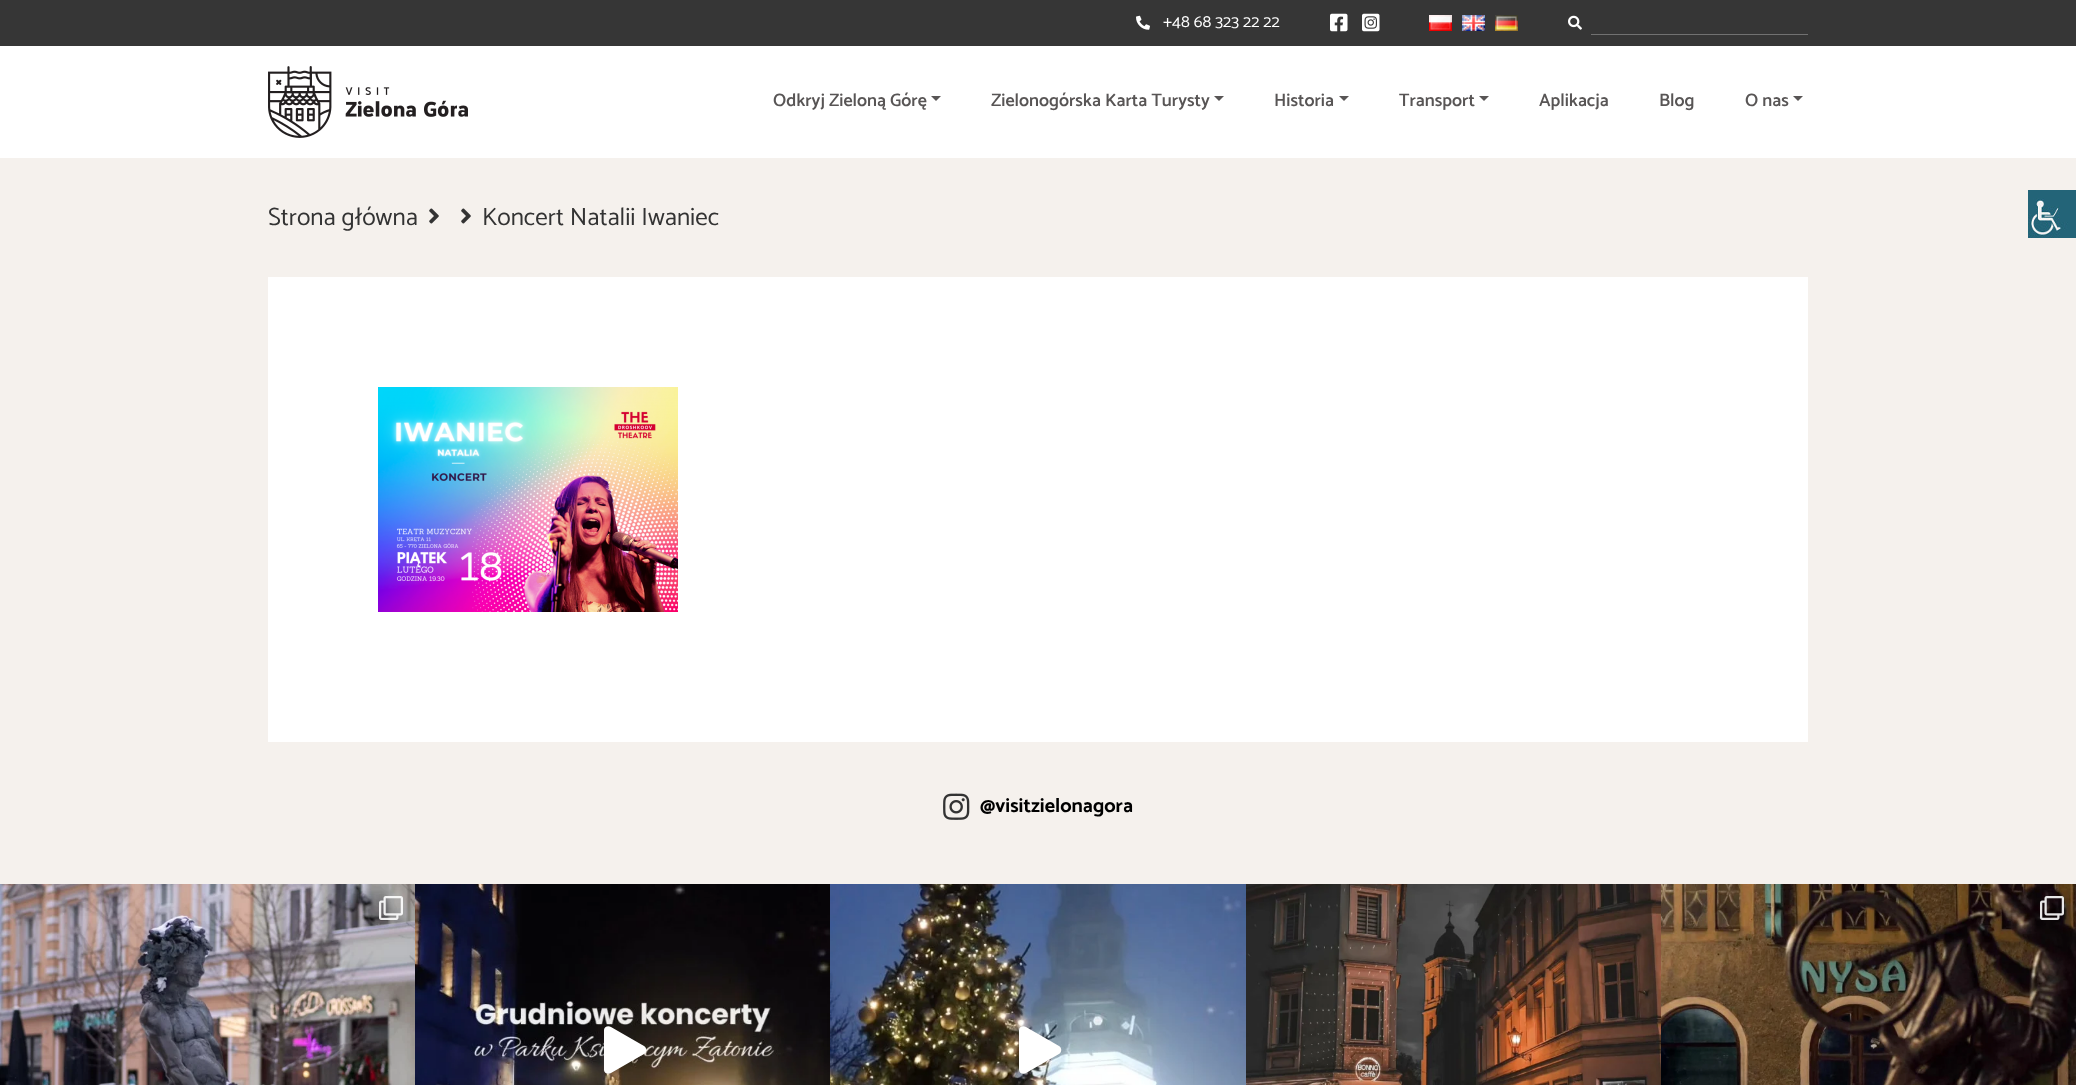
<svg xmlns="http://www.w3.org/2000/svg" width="2076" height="1085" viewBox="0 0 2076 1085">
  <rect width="100%" height="100%" fill="#fff"/>
  <path d="M0 0h2076v46H0z" fill="#363636"/>
  <image x="1136" y="15" width="14" height="15" href="img/1.png"/>
  <image x="1330" y="13" width="18" height="19" href="img/2.png"/>
  <image x="1362" y="13" width="18" height="19" href="img/3.png"/>
  <image x="1429" y="15" width="23" height="16" href="img/4.png"/>
  <image x="1462" y="15" width="23" height="16" href="img/5.png"/>
  <image x="1495" y="15" width="23" height="16" href="img/6.png"/>
  <image x="1568" y="15" width="14" height="15" href="img/7.png"/>
  <path d="M1591 34h217v1H1591z" fill="#717171"/>
  <image x="268" y="66" width="200" height="72" href="img/8.png"/>
  <path d="M931 96H941L936 101Z" fill="#585555"/>
  <path d="M1214 96H1224L1219 101Z" fill="#585555"/>
  <path d="M1339 96H1349L1344 101Z" fill="#585555"/>
  <path d="M1479 96H1489L1484 101Z" fill="#585555"/>
  <path d="M1793 96H1803L1798 101Z" fill="#585555"/>
  <path d="M0 158h2076v726H0z" fill="#f5f1ed"/>
  <image x="429" y="208" width="10" height="16" href="img/9.png"/>
  <image x="461" y="208" width="10" height="16" href="img/9.png"/>
  <path d="M268 277h1540v465H268z" fill="#fff"/>
  <image x="378" y="387" width="300" height="225" href="img/10.png"/>
  <image x="943" y="793" width="27" height="27" href="img/11.png"/>
  <image x="0" y="884" width="415" height="201" href="img/12.png"/>
  <image x="379" y="896" width="24" height="24" href="img/13.png"/>
  <image x="415" y="884" width="415" height="201" href="img/14.png"/>
  <path d="M644 1046L611 1027C608 1025 604 1027 604 1030V1070C604 1073 608 1075 611 1073L644 1054C647 1052 647 1048 644 1046Z" fill="#fff"/>
  <image x="830" y="884" width="416" height="201" href="img/15.png"/>
  <path d="M1059 1046L1026 1027C1023 1025 1019 1027 1019 1030V1070C1019 1073 1023 1075 1026 1073L1059 1054C1062 1052 1062 1048 1059 1046Z" fill="#fff"/>
  <image x="1246" y="884" width="415" height="201" href="img/16.png"/>
  <image x="1661" y="884" width="415" height="201" href="img/17.png"/>
  <image x="2040" y="896" width="24" height="24" href="img/18.png"/>
  <image x="2028" y="190" width="48" height="48" href="img/19.png"/>
  <text x="1163" y="27" font-family="Catamaran" font-size="17" fill="#fff">+48 68 323 22 22</text>
  <g font-family="Catamaran" font-size="18" font-weight="600" fill="#585555">
    <text x="773" y="106">Odkryj Zieloną Górę</text>
    <text x="991" y="106">Zielonogórska Karta Turysty</text>
    <text x="1274" y="106">Historia</text>
    <text x="1399" y="106">Transport</text>
    <text x="1539" y="106">Aplikacja</text>
    <text x="1659" y="106">Blog</text>
    <text x="1745" y="106">O nas</text>
  </g>
  <g font-family="Catamaran" font-size="25" fill="#333">
    <text x="268" y="225">Strona główna</text>
    <text x="482" y="225">Koncert Natalii Iwaniec</text>
  </g>
  <text x="980" y="812" font-family="Catamaran" font-size="20" font-weight="bold" fill="#000">@visitzielonagora</text>
</svg>
